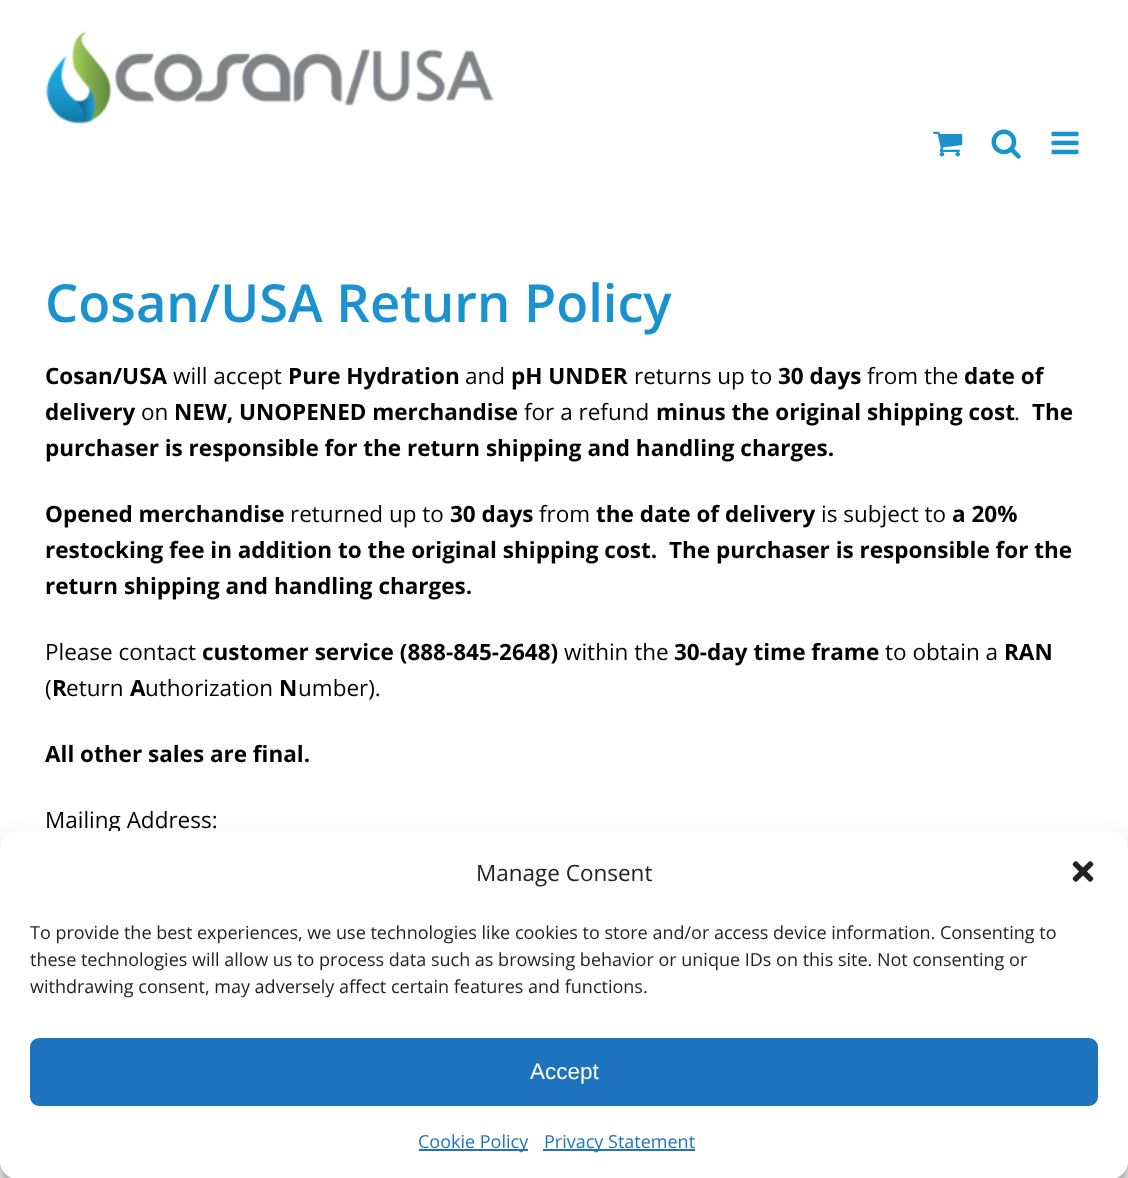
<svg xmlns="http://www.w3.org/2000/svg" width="1128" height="1178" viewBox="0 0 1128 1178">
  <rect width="100%" height="100%" fill="#fff"/>
  <image x="46" y="31" width="448" height="93" href="img/1.png"/>
  <image x="933" y="131" width="30" height="26" href="img/2.png"/>
  <image x="991" y="129" width="30" height="30" href="img/3.png"/>
  <image x="1051" y="131" width="28" height="24" href="img/4.png"/>
  <rect y="840" width="1128" height="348" rx="18" fill="#0000003b" filter="blur(4.5px)"/>
  <rect y="846" width="1128" height="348" rx="18" fill="#00000030" filter="blur(15px)"/>
  <text x="45" y="322" font-family="Open Sans" font-size="52.5" font-weight="600" fill="#1992cf">Cosan/USA Return Policy</text>
  <text x="45" y="384" font-family="Open Sans" font-size="22.5" font-weight="bold" fill="#000">Cosan/USA</text>
  <text x="173" y="384" font-family="Open Sans" font-size="22.5" fill="#000">will accept</text>
  <text x="288" y="384" font-family="Open Sans" font-size="22.5" font-weight="bold" fill="#000">Pure Hydration</text>
  <text x="465" y="384" font-family="Open Sans" font-size="22.5" fill="#000">and</text>
  <text x="511" y="384" font-family="Open Sans" font-size="22.5" font-weight="bold" fill="#000">pH UNDER</text>
  <text x="634" y="384" font-family="Open Sans" font-size="22.5" fill="#000">returns up to</text>
  <text x="778" y="384" font-family="Open Sans" font-size="22.5" font-weight="bold" fill="#000">30 days</text>
  <text x="867" y="384" font-family="Open Sans" font-size="22.5" fill="#000">from the</text>
  <g font-family="Open Sans" font-size="22.5" font-weight="bold" fill="#000">
    <text x="964" y="384">date of</text>
    <text x="45" y="420">delivery</text>
  </g>
  <text x="141" y="420" font-family="Open Sans" font-size="22.5" fill="#000">on</text>
  <text x="174" y="420" font-family="Open Sans" font-size="22.5" font-weight="bold" fill="#000">NEW, UNOPENED merchandise</text>
  <text x="524" y="420" font-family="Open Sans" font-size="22.5" fill="#000">for a refund</text>
  <text x="656" y="420" font-family="Open Sans" font-size="22.5" font-weight="bold" fill="#000">minus the original shipping cost</text>
  <text x="1014" y="420" font-family="Open Sans" font-size="22.5" fill="#000">.</text>
  <g font-family="Open Sans" font-size="22.5" font-weight="bold" fill="#000">
    <text x="1032" y="420">The</text>
    <text x="45" y="456">purchaser is responsible for the return shipping and handling charges.</text>
    <text x="45" y="522">Opened merchandise</text>
  </g>
  <text x="290" y="522" font-family="Open Sans" font-size="22.5" fill="#000">returned up to</text>
  <text x="450" y="522" font-family="Open Sans" font-size="22.5" font-weight="bold" fill="#000">30 days</text>
  <text x="539" y="522" font-family="Open Sans" font-size="22.5" fill="#000">from</text>
  <text x="596" y="522" font-family="Open Sans" font-size="22.5" font-weight="bold" fill="#000">the date of delivery</text>
  <text x="821" y="522" font-family="Open Sans" font-size="22.5" fill="#000">is subject to</text>
  <g font-family="Open Sans" font-size="22.5" font-weight="bold" fill="#000">
    <text x="952" y="522">a 20%</text>
    <text x="45" y="558">restocking fee in addition to the original shipping cost.</text>
    <text x="669" y="558">The purchaser is responsible for the</text>
    <text x="45" y="594">return shipping and handling charges.</text>
  </g>
  <text x="45" y="660" font-family="Open Sans" font-size="22.5" fill="#000">Please contact</text>
  <text x="202" y="660" font-family="Open Sans" font-size="22.5" font-weight="bold" fill="#000">customer service (888-845-2648)</text>
  <text x="564" y="660" font-family="Open Sans" font-size="22.5" fill="#000">within the</text>
  <text x="674" y="660" font-family="Open Sans" font-size="22.5" font-weight="bold" fill="#000">30-day time frame</text>
  <text x="885" y="660" font-family="Open Sans" font-size="22.5" fill="#000">to obtain a</text>
  <text x="1004" y="660" font-family="Open Sans" font-size="22.5" font-weight="bold" fill="#000">RAN</text>
  <text x="45" y="696" font-family="Open Sans" font-size="22.5" fill="#000">(</text>
  <text x="52" y="696" font-family="Open Sans" font-size="22.5" font-weight="bold" fill="#000">R</text>
  <text x="66" y="696" font-family="Open Sans" font-size="22.5" fill="#000">eturn</text>
  <text x="130" y="696" font-family="Open Sans" font-size="22.5" font-weight="bold" fill="#000">A</text>
  <text x="145" y="696" font-family="Open Sans" font-size="22.5" fill="#000">uthorization</text>
  <text x="279" y="696" font-family="Open Sans" font-size="22.5" font-weight="bold" fill="#000">N</text>
  <text x="298" y="696" font-family="Open Sans" font-size="22.5" fill="#000">umber).</text>
  <text x="45" y="762" font-family="Open Sans" font-size="22.5" font-weight="bold" fill="#000">All other sales are final.</text>
  <text x="45" y="828" font-family="Open Sans" font-size="22.5" fill="#000">Mailing Address:</text>
  <rect y="831" width="1128" height="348" rx="18" fill="#fff"/>
  <text x="476" y="881" font-family="Open Sans" font-size="22.5" fill="#222">Manage Consent</text>
  <image x="1072" y="861" width="22" height="21" href="img/5.png"/>
  <g font-family="Open Sans" font-size="18" fill="#222">
    <text x="30" y="939">To provide the best experiences, we use technologies like cookies to store and/or access device information. Consenting to</text>
    <text x="30" y="966">these technologies will allow us to process data such as browsing behavior or unique IDs on this site. Not consenting or</text>
    <text x="30" y="993">withdrawing consent, may adversely affect certain features and functions.</text>
  </g>
  <rect x="31" y="1039" width="1066" height="66" rx="8" fill="#1e73be" stroke="#1e73be" stroke-width="2"/>
  <text x="530" y="1079" font-family="Liberation Sans" font-size="22.5" fill="#fff">Accept</text>
  <path d="M419 1149h109v2H419z" fill="#1e73be"/>
  <text x="418" y="1148" font-family="Open Sans" font-size="18" fill="#1e73be">Cookie Policy</text>
  <path d="M543 1149h152v2H543z" fill="#1e73be"/>
  <text x="544" y="1148" font-family="Open Sans" font-size="18" fill="#1e73be">Privacy Statement</text>
</svg>
